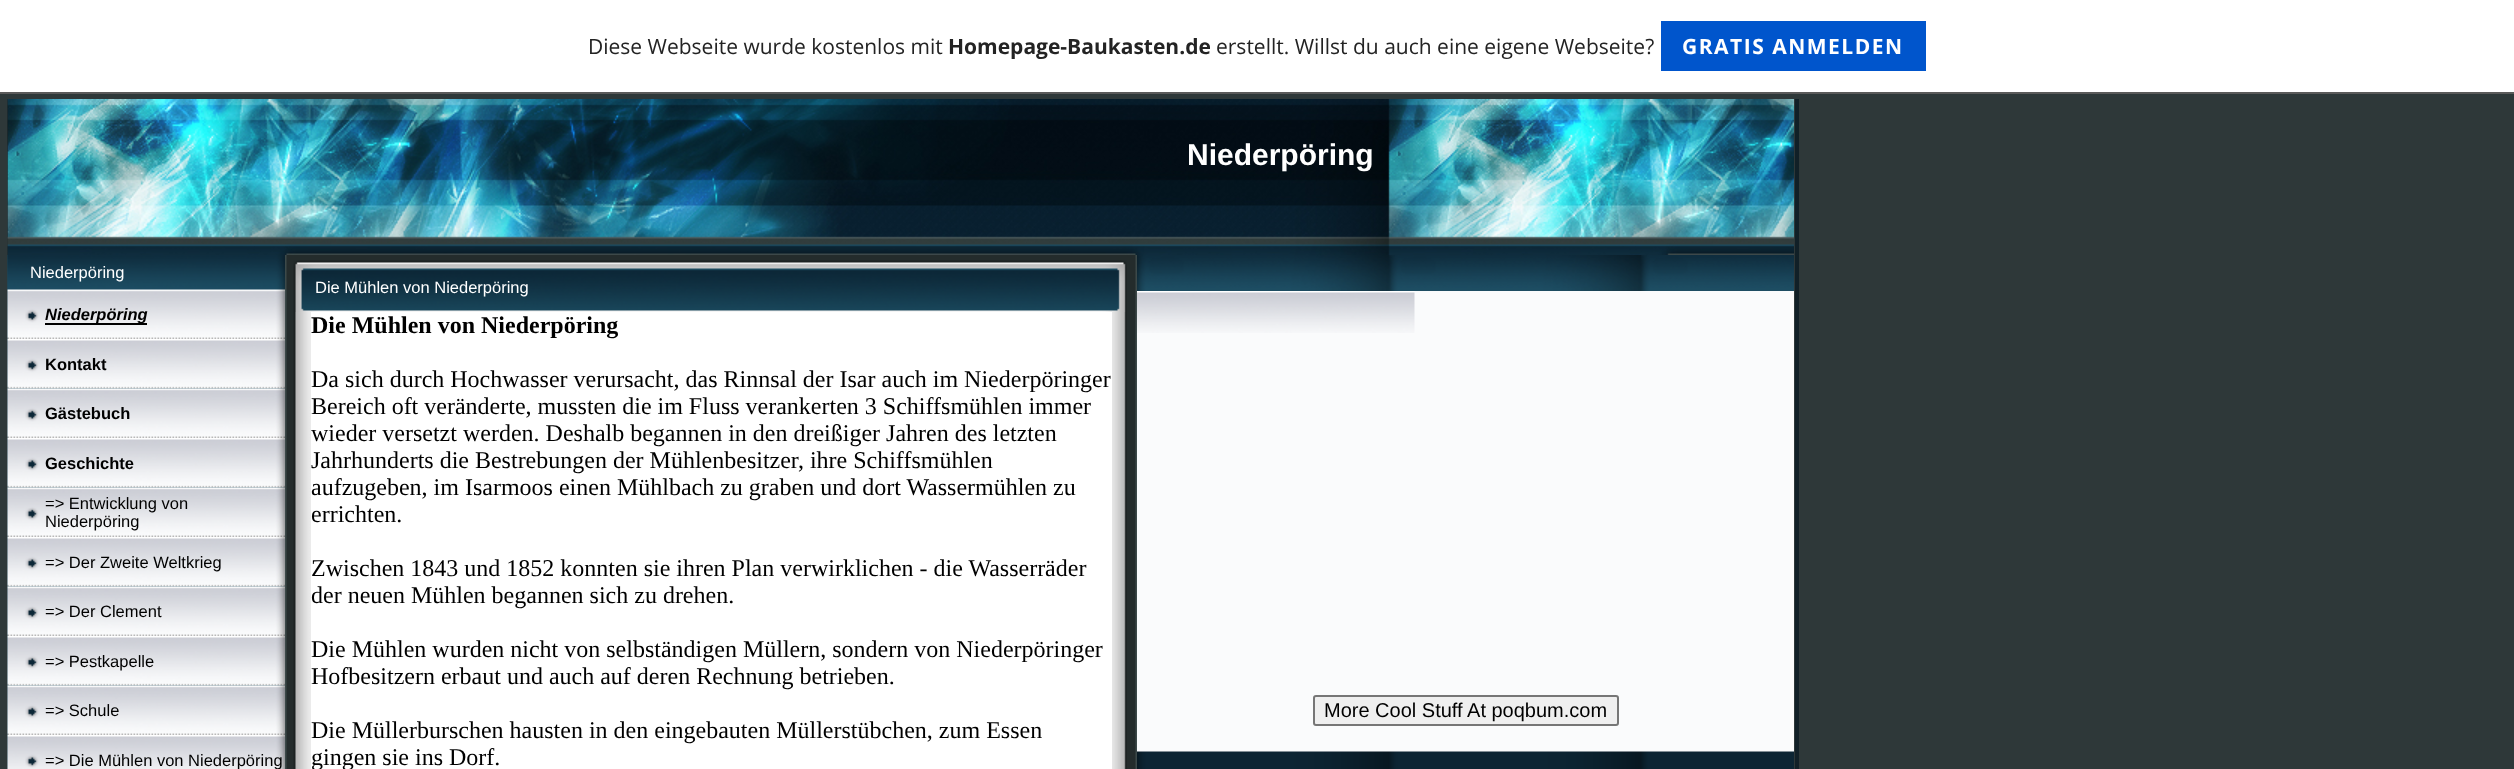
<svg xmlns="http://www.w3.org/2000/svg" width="2514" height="769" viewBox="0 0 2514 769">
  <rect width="100%" height="100%" fill="#2e3839"/>
  <path d="M0 0h2514v92H0z" fill="#fff"/>
  <path d="M0 92h2514v2H0z" fill="#5a5a5a"/>
  <path d="M1661 21h265v50H1661z" fill="#05c"/>
  <image x="7" y="99" width="1787" height="156" href="img/1.png"/>
  <image x="7" y="255" width="278" height="514" href="img/2.png"/>
  <image x="7" y="255" width="278" height="35" href="img/3.png"/>
  <image x="7" y="289" width="278" height="50" href="img/4.png"/>
  <path d="M45 323h102v2H45z" fill="#000"/>
  <image x="7" y="339" width="278" height="50" href="img/5.png"/>
  <image x="7" y="388" width="278" height="50" href="img/6.png"/>
  <image x="7" y="438" width="278" height="50" href="img/5.png"/>
  <image x="7" y="487" width="278" height="50" href="img/6.png"/>
  <image x="7" y="537" width="278" height="50" href="img/5.png"/>
  <image x="7" y="586" width="278" height="50" href="img/6.png"/>
  <image x="7" y="636" width="278" height="50" href="img/5.png"/>
  <image x="7" y="685" width="278" height="50" href="img/6.png"/>
  <image x="7" y="735" width="278" height="34" href="img/7.png"/>
  <image x="285" y="255" width="852" height="514" href="img/8.png"/>
  <image x="293" y="260" width="834" height="52" href="img/9.png"/>
  <image x="293" y="312" width="834" height="457" href="img/10.png"/>
  <path d="M311 312h801v457H311z" fill="#fff"/>
  <image x="1137" y="255" width="657" height="36" href="img/11.png"/>
  <path d="M1137 291h657v461H1137z" fill="#fafbfc"/>
  <image x="1137" y="291" width="278" height="42" href="img/12.png"/>
  <rect x="1314" y="696" width="304" height="29" rx="2" fill="#efefef" stroke="#767676" stroke-width="2"/>
  <image x="1137" y="751" width="657" height="18" href="img/13.png"/>
  <path d="M1795 99h4v670H1795z" fill="#112027"/>
  <text x="588" y="54" font-family="Open Sans" font-size="21" fill="#232323">Diese Webseite wurde kostenlos mit</text>
  <text x="948" y="54" font-family="Open Sans" font-size="21" font-weight="bold" fill="#232323">Homepage-Baukasten.de</text>
  <text x="1216" y="54" font-family="Open Sans" font-size="21" fill="#232323">erstellt. Willst du auch eine eigene Webseite?</text>
  <text x="1682" y="54" font-family="Open Sans" font-size="21" font-weight="bold" letter-spacing="1.5" fill="#fff">GRATIS ANMELDEN</text>
  <text x="1187" y="165" font-family="Liberation Sans" font-size="30" font-weight="bold" fill="#fff">Niederpöring</text>
  <text x="30" y="278" font-family="Liberation Sans" font-size="16.5" fill="#fff">Niederpöring</text>
  <text x="45" y="320" font-family="Liberation Sans" font-size="16.5" font-weight="bold" font-style="italic" fill="#000">Niederpöring</text>
  <g font-family="Liberation Sans" font-size="16.5" font-weight="bold" fill="#000">
    <text x="45" y="370">Kontakt</text>
    <text x="45" y="419">Gästebuch</text>
    <text x="45" y="469">Geschichte</text>
  </g>
  <g font-family="Liberation Sans" font-size="16.5" fill="#000">
    <text x="45" y="509">=&gt; Entwicklung von</text>
    <text x="45" y="527">Niederpöring</text>
    <text x="45" y="568">=&gt; Der Zweite Weltkrieg</text>
    <text x="45" y="617">=&gt; Der Clement</text>
    <text x="45" y="667">=&gt; Pestkapelle</text>
    <text x="45" y="716">=&gt; Schule</text>
    <text x="45" y="766">=&gt; Die Mühlen von Niederpöring</text>
  </g>
  <text x="315" y="293" font-family="Liberation Sans" font-size="16.5" fill="#fff">Die Mühlen von Niederpöring</text>
  <text x="311" y="333" font-family="Liberation Serif" font-size="24" font-weight="bold" fill="#000">Die Mühlen von Niederpöring</text>
  <g font-family="Liberation Serif" font-size="24" fill="#000">
    <text x="311" y="387">Da sich durch Hochwasser verursacht, das Rinnsal der Isar auch im Niederpöringer</text>
    <text x="311" y="414">Bereich oft veränderte, mussten die im Fluss verankerten 3 Schiffsmühlen immer</text>
    <text x="311" y="441">wieder versetzt werden. Deshalb begannen in den dreißiger Jahren des letzten</text>
    <text x="311" y="468">Jahrhunderts die Bestrebungen der Mühlenbesitzer, ihre Schiffsmühlen</text>
    <text x="311" y="495">aufzugeben, im Isarmoos einen Mühlbach zu graben und dort Wassermühlen zu</text>
    <text x="311" y="522">errichten.</text>
    <text x="311" y="576">Zwischen 1843 und 1852 konnten sie ihren Plan verwirklichen - die Wasserräder</text>
    <text x="311" y="603">der neuen Mühlen begannen sich zu drehen.</text>
    <text x="311" y="657">Die Mühlen wurden nicht von selbständigen Müllern, sondern von Niederpöringer</text>
    <text x="311" y="684">Hofbesitzern erbaut und auch auf deren Rechnung betrieben.</text>
    <text x="311" y="738">Die Müllerburschen hausten in den eingebauten Müllerstübchen, zum Essen</text>
    <text x="311" y="765">gingen sie ins Dorf.</text>
  </g>
  <text x="1324" y="717" font-family="Liberation Sans" font-size="20" fill="#000">More Cool Stuff At poqbum.com</text>
</svg>
